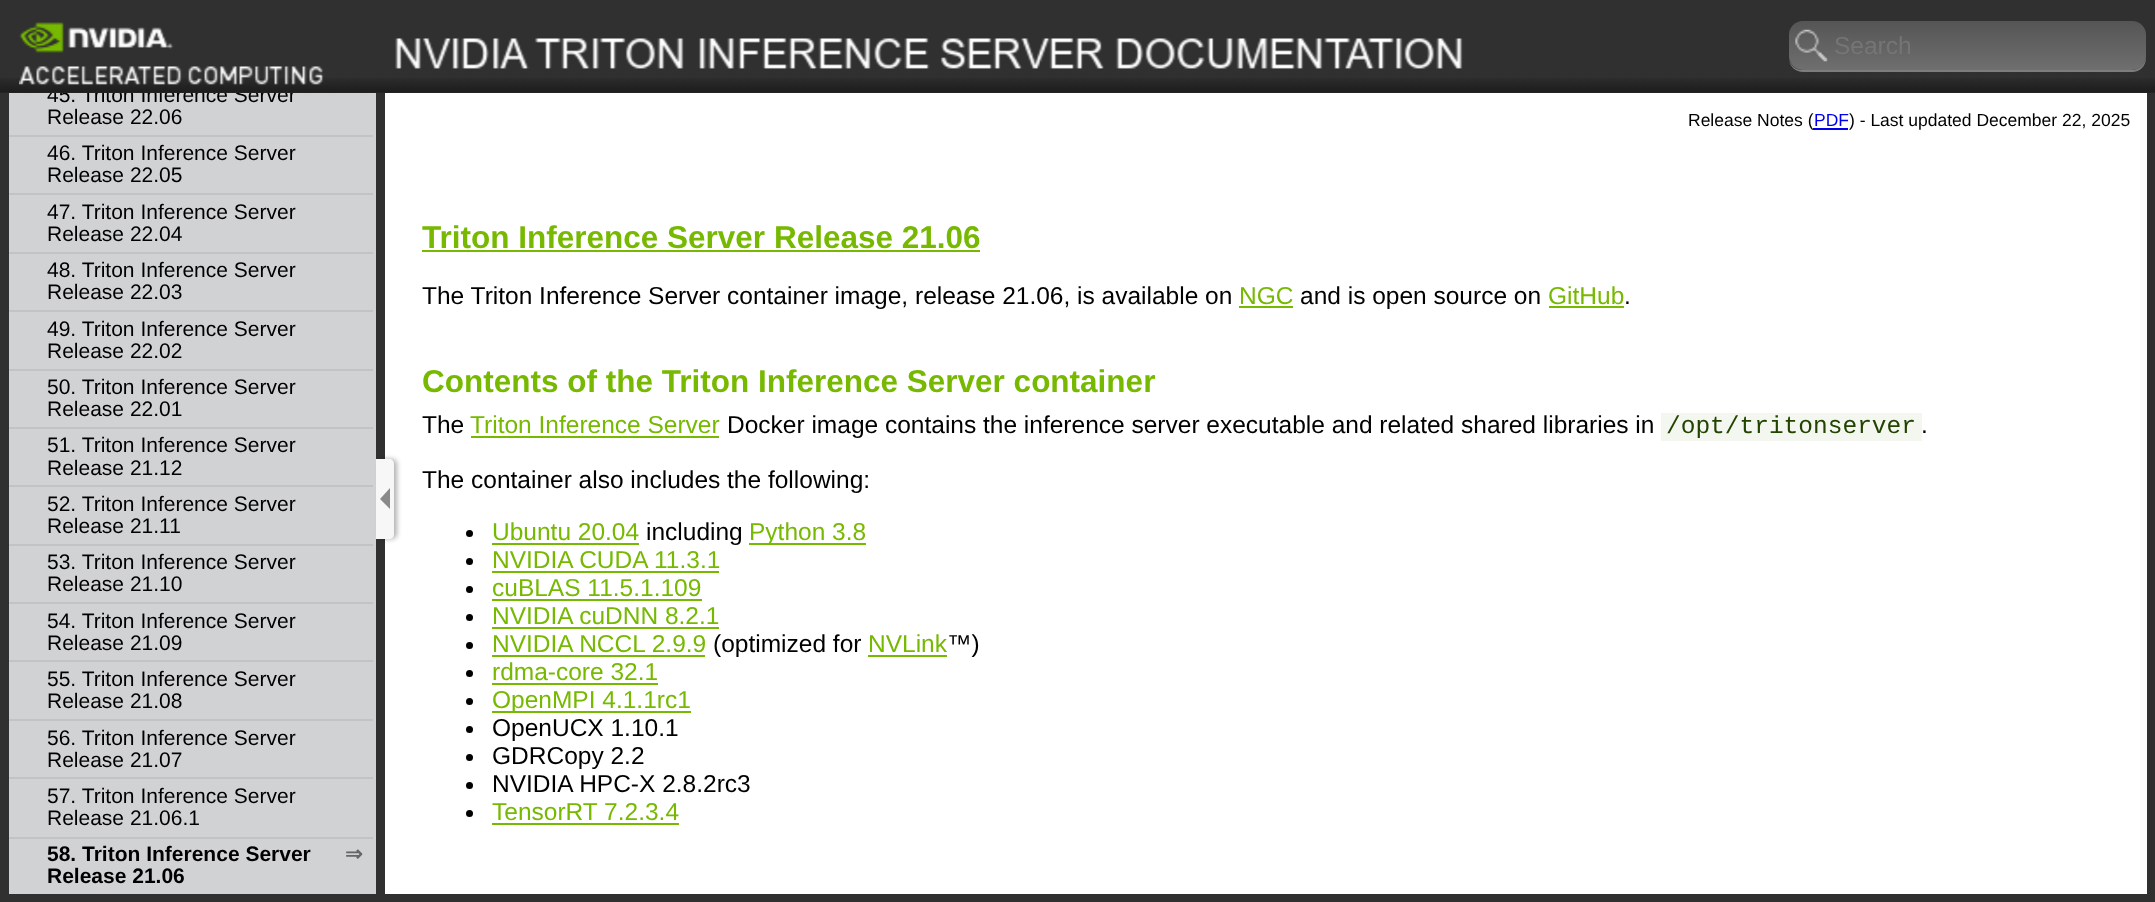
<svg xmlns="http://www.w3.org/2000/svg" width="2155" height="902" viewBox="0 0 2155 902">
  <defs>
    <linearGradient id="g1" gradientUnits="userSpaceOnUse" x1="1967" y1="70" x2="1967" y2="21"><stop offset="0" stop-color="#6f6f6f"/><stop offset="1" stop-color="#555"/></linearGradient>
    <clipPath id="clip1"><path d="M9 93h367v801H9z"/></clipPath>
  </defs>
  <rect width="100%" height="100%" fill="#fff"/>
  <path d="M0 0h2155v93H0z" fill="#303030"/>
  <image x="0" y="78" width="2155" height="15" href="img/1.png"/>
  <image x="19" y="22" width="305" height="63" href="img/2.png"/>
  <image x="395" y="38" width="1068" height="31" href="img/3.png"/>
  <path d="M1789 60C1790 67 1796 72 1803 72H2132C2140 72 2146 66 2146 58V37L2145 33L2146 56C2146 64 2139 70 2132 70H1802C1796 70 1791 66 1789 60Z" fill="#7d7d7d"/>
  <rect x="1789" y="21" width="357" height="49" rx="14" fill="url(#g1)"/>
  <image x="1795" y="29" width="33" height="33" href="img/4.png"/>
  <path d="M2147 93h8v809H2147z" fill="#303030"/>
  <path d="M9 894h2146v8H9z" fill="#303030"/>
  <path d="M0 93h9v809H0z" fill="#303030"/>
  <path d="M9 93h367v801H9z" fill="#d1d2d4"/>
  <path d="M9 135h364v2H9z" fill="#c2c3c5"/>
  <path d="M9 193h364v2H9z" fill="#c2c3c5"/>
  <path d="M9 252h364v2H9z" fill="#c2c3c5"/>
  <path d="M9 310h364v2H9z" fill="#c2c3c5"/>
  <path d="M9 369h364v2H9z" fill="#c2c3c5"/>
  <path d="M9 427h364v2H9z" fill="#c2c3c5"/>
  <path d="M9 485h364v2H9z" fill="#c2c3c5"/>
  <path d="M9 544h364v2H9z" fill="#c2c3c5"/>
  <path d="M9 602h364v2H9z" fill="#c2c3c5"/>
  <path d="M9 660h364v2H9z" fill="#c2c3c5"/>
  <path d="M9 719h364v2H9z" fill="#c2c3c5"/>
  <path d="M9 777h364v2H9z" fill="#c2c3c5"/>
  <path d="M9 837h364v2H9z" fill="#c2c3c5"/>
  <path d="M376 93h9v801H376z" fill="#303030"/>
  <rect x="380" y="459" width="17" height="80" rx="5" fill="#0000004d" filter="blur(2.5px)"/>
  <path d="M376 459H389C392 459 394 461 394 464V534C394 537 392 539 389 539H376Z" fill="#f7f7f7"/>
  <path d="M390 488V509L380 499Z" fill="#898989"/>
  <path d="M422 250h558v2H422z" fill="#76b900"/>
  <path d="M1239 306h54v2H1239z" fill="#76b900"/>
  <path d="M1549 306h75v2H1549z" fill="#76b900"/>
  <path d="M471 436h248v2H471z" fill="#76b900"/>
  <path d="M1661 413h261v28H1661z" fill="#f4f7f0"/>
  <circle cx="469.5" cy="533.5" r="3.5" fill="#000"/>
  <path d="M492 543h147v2H492z" fill="#76b900"/>
  <path d="M749 543h117v2H749z" fill="#76b900"/>
  <circle cx="469.5" cy="561.5" r="3.5" fill="#000"/>
  <path d="M492 571h227v2H492z" fill="#76b900"/>
  <circle cx="469.5" cy="589.5" r="3.5" fill="#000"/>
  <path d="M492 599h210v2H492z" fill="#76b900"/>
  <circle cx="469.5" cy="617.5" r="3.5" fill="#000"/>
  <path d="M492 627h227v2H492z" fill="#76b900"/>
  <circle cx="469.5" cy="645.5" r="3.5" fill="#000"/>
  <path d="M492 655h213v2H492z" fill="#76b900"/>
  <path d="M868 655h79v2H868z" fill="#76b900"/>
  <circle cx="469.5" cy="673.5" r="3.5" fill="#000"/>
  <path d="M492 683h166v2H492z" fill="#76b900"/>
  <circle cx="469.5" cy="701.5" r="3.5" fill="#000"/>
  <path d="M492 711h199v2H492z" fill="#76b900"/>
  <circle cx="469.5" cy="729.5" r="3.5" fill="#000"/>
  <circle cx="469.5" cy="757.5" r="3.5" fill="#000"/>
  <circle cx="469.5" cy="785.5" r="3.5" fill="#000"/>
  <circle cx="469.5" cy="813.5" r="3.5" fill="#000"/>
  <path d="M492 823h187v2H492z" fill="#76b900"/>
  <text x="1834" y="54" font-family="Liberation Sans" font-size="24.5" fill="#757575">Search</text>
  <g clip-path="url(#clip1)">
    <text x="47" y="102" font-family="Liberation Sans" font-size="21" fill="#000">45. Triton Inference Server</text>
  </g>
  <g font-family="Liberation Sans" font-size="21" fill="#000">
    <text x="47" y="124">Release 22.06</text>
    <text x="47" y="160">46. Triton Inference Server</text>
    <text x="47" y="182">Release 22.05</text>
    <text x="47" y="219">47. Triton Inference Server</text>
    <text x="47" y="241">Release 22.04</text>
    <text x="47" y="277">48. Triton Inference Server</text>
    <text x="47" y="299">Release 22.03</text>
    <text x="47" y="336">49. Triton Inference Server</text>
    <text x="47" y="358">Release 22.02</text>
    <text x="47" y="394">50. Triton Inference Server</text>
    <text x="47" y="416">Release 22.01</text>
    <text x="47" y="452">51. Triton Inference Server</text>
    <text x="47" y="475">Release 21.12</text>
    <text x="47" y="511">52. Triton Inference Server</text>
    <text x="47" y="533">Release 21.11</text>
    <text x="47" y="569">53. Triton Inference Server</text>
    <text x="47" y="591">Release 21.10</text>
    <text x="47" y="628">54. Triton Inference Server</text>
    <text x="47" y="650">Release 21.09</text>
    <text x="47" y="686">55. Triton Inference Server</text>
    <text x="47" y="708">Release 21.08</text>
    <text x="47" y="745">56. Triton Inference Server</text>
    <text x="47" y="767">Release 21.07</text>
    <text x="47" y="803">57. Triton Inference Server</text>
    <text x="47" y="825">Release 21.06.1</text>
  </g>
  <g font-family="Liberation Sans" font-size="21" font-weight="bold" fill="#000">
    <text x="47" y="861">58. Triton Inference Server</text>
    <text x="47" y="883">Release 21.06</text>
  </g>
  <text x="345" y="861" font-family="DejaVu Sans" font-size="21" font-weight="bold" fill="#666">⇒</text>
  <text x="1688" y="126" font-family="Liberation Sans" font-size="17.5" fill="#000">Release Notes (</text>
  <text x="1814" y="126" font-family="Liberation Sans" font-size="17.5" fill="#00e">PDF</text>
  <path d="M1813 128h35v2H1813z" fill="#00e"/>
  <text x="1849" y="126" font-family="Liberation Sans" font-size="17.5" fill="#000">) - Last updated December 22, 2025</text>
  <text x="422" y="248" font-family="Liberation Sans" font-size="31.5" font-weight="bold" fill="#76b900">Triton Inference Server Release 21.06</text>
  <text x="422" y="304" font-family="Liberation Sans" font-size="24.5" fill="#000">The Triton Inference Server container image, release 21.06, is available on</text>
  <text x="1239" y="304" font-family="Liberation Sans" font-size="24.5" fill="#76b900">NGC</text>
  <text x="1300" y="304" font-family="Liberation Sans" font-size="24.5" fill="#000">and is open source on</text>
  <text x="1548" y="304" font-family="Liberation Sans" font-size="24.5" fill="#76b900">GitHub</text>
  <text x="1624" y="304" font-family="Liberation Sans" font-size="24.5" fill="#000">.</text>
  <text x="422" y="392" font-family="Liberation Sans" font-size="31.5" font-weight="bold" fill="#76b900">Contents of the Triton Inference Server container</text>
  <text x="422" y="433" font-family="Liberation Sans" font-size="24.5" fill="#000">The</text>
  <text x="470" y="433" font-family="Liberation Sans" font-size="24.5" fill="#76b900">Triton Inference Server</text>
  <text x="727" y="433" font-family="Liberation Sans" font-size="24.5" fill="#000">Docker image contains the inference server executable and related shared libraries in</text>
  <text x="1666" y="433" font-family="Liberation Mono" font-size="24.5" fill="#240">/opt/tritonserver</text>
  <g font-family="Liberation Sans" font-size="24.5" fill="#000">
    <text x="1921" y="433">.</text>
    <text x="422" y="488">The container also includes the following:</text>
  </g>
  <text x="492" y="540" font-family="Liberation Sans" font-size="24.5" fill="#76b900">Ubuntu 20.04</text>
  <text x="646" y="540" font-family="Liberation Sans" font-size="24.5" fill="#000">including</text>
  <g font-family="Liberation Sans" font-size="24.5" fill="#76b900">
    <text x="749" y="540">Python 3.8</text>
    <text x="492" y="568">NVIDIA CUDA 11.3.1</text>
    <text x="492" y="596">cuBLAS 11.5.1.109</text>
    <text x="492" y="624">NVIDIA cuDNN 8.2.1</text>
    <text x="492" y="652">NVIDIA NCCL 2.9.9</text>
  </g>
  <text x="713" y="652" font-family="Liberation Sans" font-size="24.5" fill="#000">(optimized for</text>
  <text x="868" y="652" font-family="Liberation Sans" font-size="24.5" fill="#76b900">NVLink</text>
  <text x="947" y="652" font-family="Liberation Sans" font-size="24.5" fill="#000">™)</text>
  <g font-family="Liberation Sans" font-size="24.5" fill="#76b900">
    <text x="492" y="680">rdma-core 32.1</text>
    <text x="492" y="708">OpenMPI 4.1.1rc1</text>
  </g>
  <g font-family="Liberation Sans" font-size="24.5" fill="#000">
    <text x="492" y="736">OpenUCX 1.10.1</text>
    <text x="492" y="764">GDRCopy 2.2</text>
    <text x="492" y="792">NVIDIA HPC-X 2.8.2rc3</text>
  </g>
  <text x="492" y="820" font-family="Liberation Sans" font-size="24.5" fill="#76b900">TensorRT 7.2.3.4</text>
</svg>
